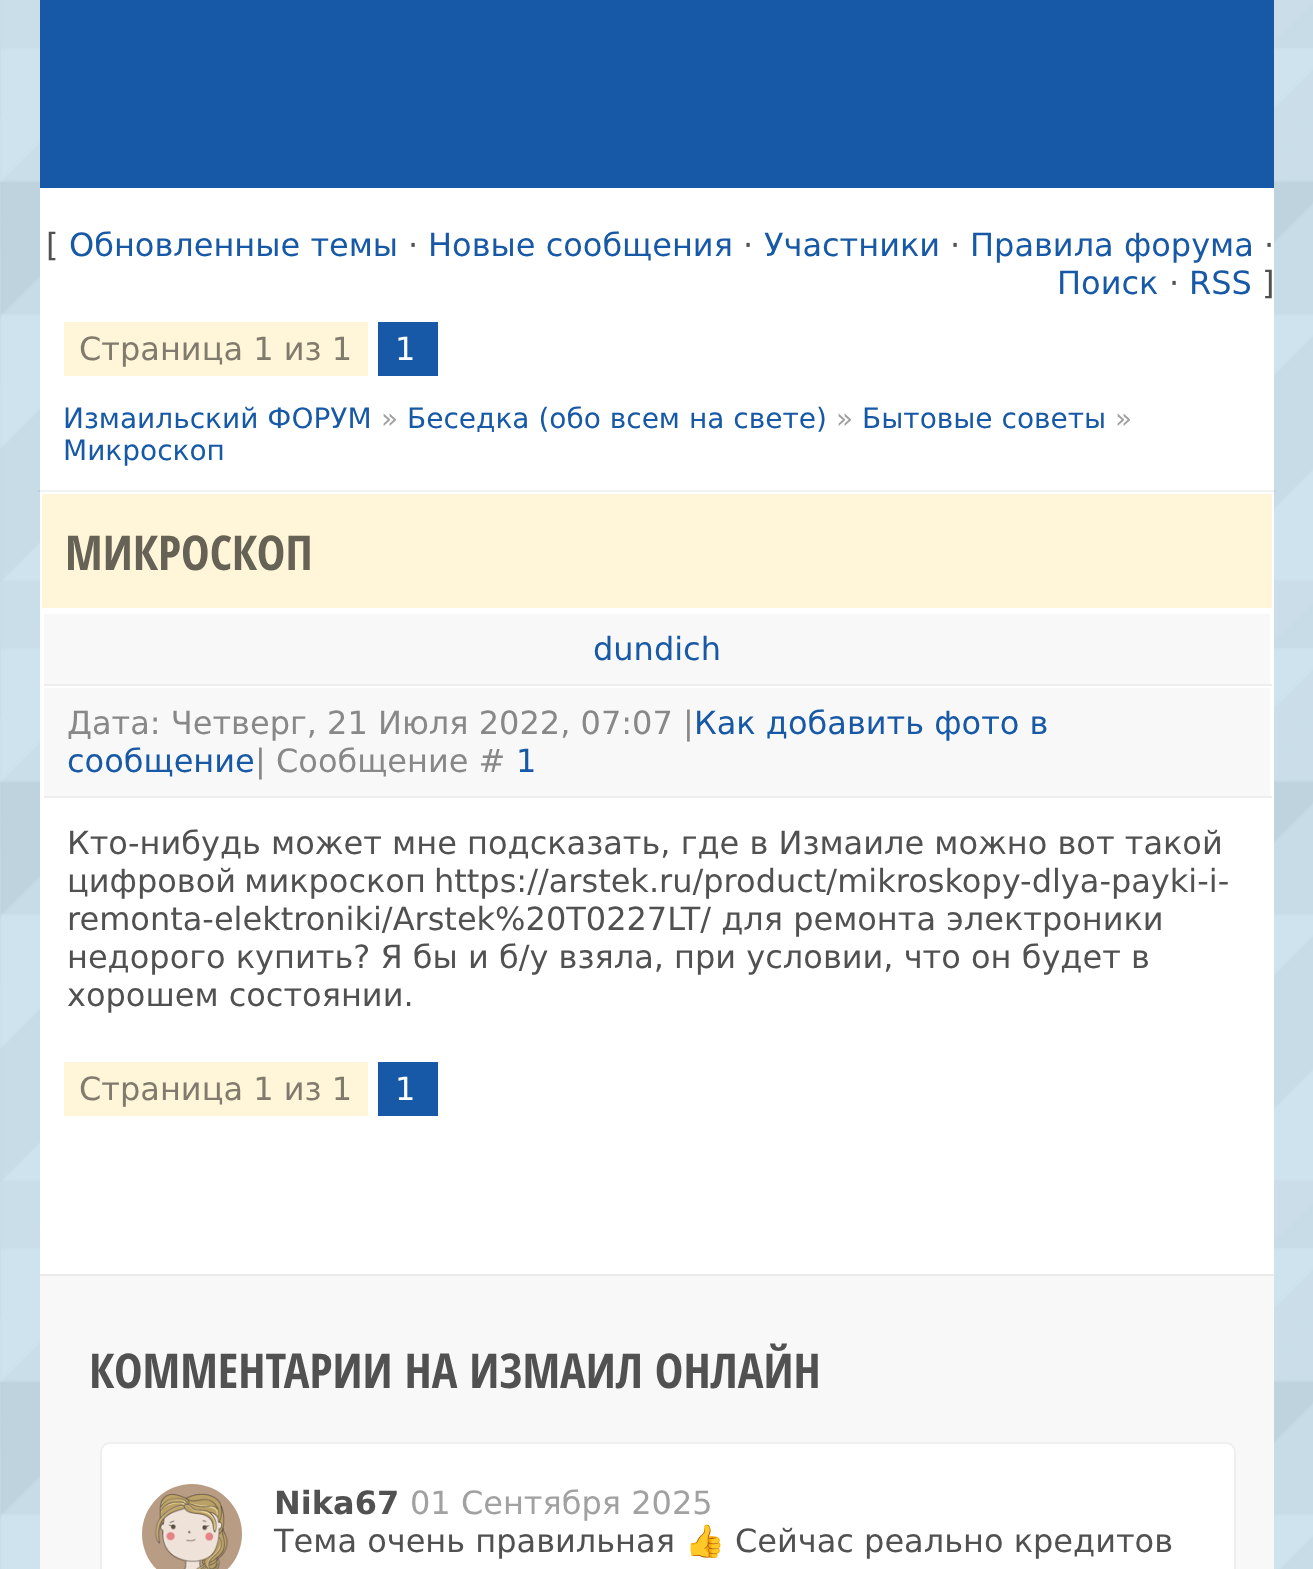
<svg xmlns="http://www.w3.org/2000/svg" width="1313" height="1569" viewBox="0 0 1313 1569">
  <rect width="100%" height="100%" fill="#cee6f3"/>
  <image x="0" y="0" width="1313" height="1569" href="img/1.png"/>
  <path d="M40 188h1234v1086H40z" fill="#fff"/>
  <path d="M40 0h1234v188H40z" fill="#1759a6"/>
  <path d="M64 322h304v54H64z" fill="#fff5d8"/>
  <path d="M378 322h60v54H378z" fill="#1759a6"/>
  <path d="M38 490h1238v2H38z" fill="#0000000d"/>
  <path d="M42 494h1230v114H42z" fill="#fff5d8"/>
  <path d="M44 614h1226v70H44z" fill="#f8f8f8"/>
  <path d="M42 684h1230v2H42z" fill="#eee"/>
  <path d="M42 684h2v2H42z" fill="#fff"/>
  <path d="M44 688h1226v108H44z" fill="#f8f8f8"/>
  <path d="M42 796h1230v2H42z" fill="#eee"/>
  <path d="M42 796h2v2H42z" fill="#fff"/>
  <path d="M64 1062h304v54H64z" fill="#fff5d8"/>
  <path d="M378 1062h60v54H378z" fill="#1759a6"/>
  <path d="M40 1276h1234v293H40z" fill="#f8f8f8"/>
  <path d="M40 1274h1234v2H40z" fill="#eaeaea"/>
  <rect x="101" y="1443" width="1134" height="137" rx="9" fill="#fff" stroke="#efefef" stroke-width="2"/>
  <image x="142" y="1484" width="100" height="85" href="img/2.png"/>
  <text x="46" y="256" font-family="DejaVu Sans" font-size="32" fill="#515151">[</text>
  <text x="69" y="256" font-family="DejaVu Sans" font-size="32" fill="#1759a6">Обновленные темы</text>
  <text x="408" y="256" font-family="DejaVu Sans" font-size="32" fill="#515151">·</text>
  <text x="428" y="256" font-family="DejaVu Sans" font-size="32" fill="#1759a6">Новые сообщения</text>
  <text x="743" y="256" font-family="DejaVu Sans" font-size="32" fill="#515151">·</text>
  <text x="764" y="256" font-family="DejaVu Sans" font-size="32" fill="#1759a6">Участники</text>
  <text x="950" y="256" font-family="DejaVu Sans" font-size="32" fill="#515151">·</text>
  <text x="970" y="256" font-family="DejaVu Sans" font-size="32" fill="#1759a6">Правила форума</text>
  <text x="1264" y="256" font-family="DejaVu Sans" font-size="32" fill="#515151">·</text>
  <text x="1057" y="294" font-family="DejaVu Sans" font-size="32" fill="#1759a6">Поиск</text>
  <text x="1169" y="294" font-family="DejaVu Sans" font-size="32" fill="#515151">·</text>
  <text x="1189" y="294" font-family="DejaVu Sans" font-size="32" fill="#1759a6">RSS</text>
  <text x="1262" y="294" font-family="DejaVu Sans" font-size="32" fill="#515151">]</text>
  <text x="79" y="360" font-family="DejaVu Sans" font-size="32" fill="#807b6c">Страница 1 из 1</text>
  <text x="395" y="360" font-family="DejaVu Sans" font-size="32" fill="#fff">1</text>
  <text x="63" y="428" font-family="DejaVu Sans" font-size="28" fill="#1759a6">Измаильский ФОРУМ</text>
  <text x="381" y="428" font-family="DejaVu Sans" font-size="28" fill="#a1a1a1">»</text>
  <text x="407" y="428" font-family="DejaVu Sans" font-size="28" fill="#1759a6">Беседка (обо всем на свете)</text>
  <text x="836" y="428" font-family="DejaVu Sans" font-size="28" fill="#a1a1a1">»</text>
  <text x="862" y="428" font-family="DejaVu Sans" font-size="28" fill="#1759a6">Бытовые советы</text>
  <text x="1115" y="428" font-family="DejaVu Sans" font-size="28" fill="#a1a1a1">»</text>
  <text x="63" y="460" font-family="DejaVu Sans" font-size="28" fill="#1759a6">Микроскоп</text>
  <text x="65" y="570" font-family="Open Sans Condensed" font-size="48" font-weight="bold" fill="#666256">МИКРОСКОП</text>
  <text x="593" y="660" font-family="DejaVu Sans" font-size="32" fill="#1759a6">dundich</text>
  <text x="67" y="734" font-family="DejaVu Sans" font-size="32" fill="#888">Дата: Четверг, 21 Июля 2022, 07:07 |</text>
  <g font-family="DejaVu Sans" font-size="32" fill="#1759a6">
    <text x="694" y="734">Как добавить фото в</text>
    <text x="67" y="772">сообщение</text>
  </g>
  <text x="255" y="772" font-family="DejaVu Sans" font-size="32" fill="#888">| Сообщение #</text>
  <text x="516" y="772" font-family="DejaVu Sans" font-size="32" fill="#1759a6">1</text>
  <g font-family="DejaVu Sans" font-size="32" fill="#515151">
    <text x="67" y="854">Кто-нибудь может мне подсказать, где в Измаиле можно вот такой</text>
    <text x="67" y="892" word-spacing="-2">цифровой микроскоп https://arstek.ru/product/mikroskopy-dlya-payki-i-</text>
    <text x="67" y="930">remonta-elektroniki/Arstek%20T0227LT/ для ремонта электроники</text>
    <text x="67" y="968">недорого купить? Я бы и б/у взяла, при условии, что он будет в</text>
    <text x="67" y="1006">хорошем состоянии.</text>
  </g>
  <text x="79" y="1100" font-family="DejaVu Sans" font-size="32" fill="#807b6c">Страница 1 из 1</text>
  <text x="395" y="1100" font-family="DejaVu Sans" font-size="32" fill="#fff">1</text>
  <text x="89" y="1388" font-family="Open Sans Condensed" font-size="48" font-weight="bold" fill="#515151">КОММЕНТАРИИ НА ИЗМАИЛ ОНЛАЙН</text>
  <text x="274" y="1514" font-family="DejaVu Sans" font-size="32" font-weight="bold" fill="#515151">Nika67</text>
  <text x="410" y="1514" font-family="DejaVu Sans" font-size="32" fill="#a1a1a1">01 Сентября 2025</text>
  <text x="274" y="1552" font-family="DejaVu Sans" font-size="32" fill="#515151">Тема очень правильная</text>
  <text x="685" y="1552" font-family="Noto Color Emoji" font-size="32" fill="#515151">👍</text>
  <text x="735" y="1552" font-family="DejaVu Sans" font-size="32" fill="#515151">Сейчас реально кредитов</text>
</svg>
